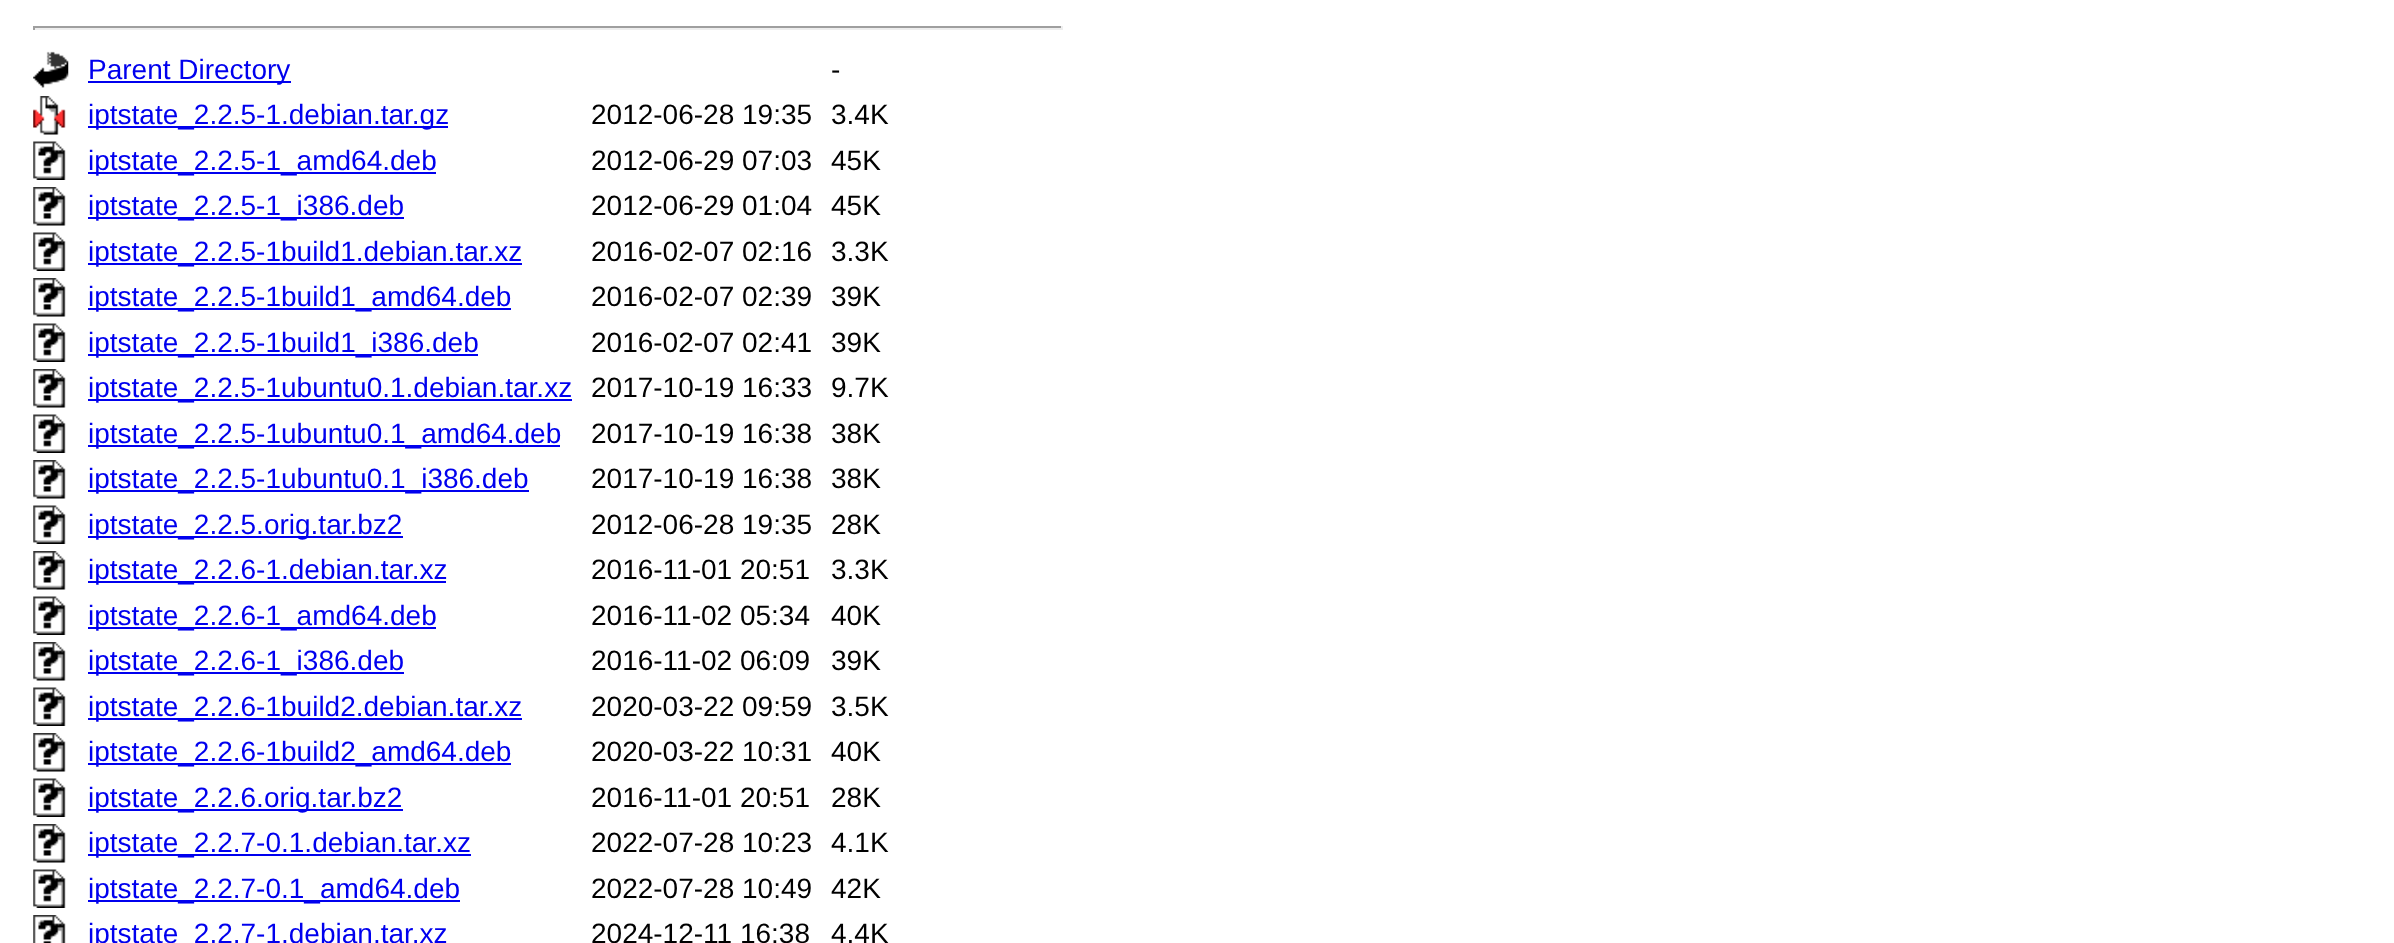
<svg xmlns="http://www.w3.org/2000/svg" width="2394" height="943" viewBox="0 0 2394 943">
  <rect width="100%" height="100%" fill="#fff"/>
  <path d="M33 26h1029v2H33z" fill="#9f9f9f"/>
  <path d="M1061 26h2v4H1061z" fill="#eee"/>
  <path d="M33 28h1029v2H33z" fill="#eee"/>
  <path d="M33 26h2v4H33z" fill="#9f9f9f"/>
  <image x="33" y="51" width="36" height="37" href="img/1.png"/>
  <path d="M88 81h203v2H88z" fill="#00e"/>
  <image x="33" y="96" width="33" height="39" href="img/2.png"/>
  <path d="M88 126h360v2H88z" fill="#00e"/>
  <image x="33" y="141" width="33" height="39" href="img/3.png"/>
  <path d="M88 172h348v2H88z" fill="#00e"/>
  <image x="33" y="187" width="33" height="39" href="img/4.png"/>
  <path d="M88 217h316v2H88z" fill="#00e"/>
  <image x="33" y="232" width="33" height="39" href="img/3.png"/>
  <path d="M88 263h434v2H88z" fill="#00e"/>
  <image x="33" y="278" width="33" height="39" href="img/4.png"/>
  <path d="M88 308h423v2H88z" fill="#00e"/>
  <image x="33" y="323" width="33" height="39" href="img/3.png"/>
  <path d="M88 354h390v2H88z" fill="#00e"/>
  <image x="33" y="369" width="33" height="39" href="img/4.png"/>
  <path d="M88 399h484v2H88z" fill="#00e"/>
  <image x="33" y="414" width="33" height="39" href="img/3.png"/>
  <path d="M88 445h472v2H88z" fill="#00e"/>
  <image x="33" y="460" width="33" height="39" href="img/4.png"/>
  <path d="M88 490h441v2H88z" fill="#00e"/>
  <image x="33" y="505" width="33" height="39" href="img/3.png"/>
  <path d="M88 536h315v2H88z" fill="#00e"/>
  <image x="33" y="551" width="33" height="39" href="img/4.png"/>
  <path d="M88 581h358v2H88z" fill="#00e"/>
  <image x="33" y="596" width="33" height="39" href="img/3.png"/>
  <path d="M88 627h348v2H88z" fill="#00e"/>
  <image x="33" y="642" width="33" height="39" href="img/4.png"/>
  <path d="M88 672h316v2H88z" fill="#00e"/>
  <image x="33" y="687" width="33" height="39" href="img/3.png"/>
  <path d="M88 718h434v2H88z" fill="#00e"/>
  <image x="33" y="733" width="33" height="39" href="img/4.png"/>
  <path d="M88 763h423v2H88z" fill="#00e"/>
  <image x="33" y="778" width="33" height="39" href="img/3.png"/>
  <path d="M88 809h315v2H88z" fill="#00e"/>
  <image x="33" y="824" width="33" height="39" href="img/4.png"/>
  <path d="M88 854h383v2H88z" fill="#00e"/>
  <image x="33" y="869" width="33" height="39" href="img/3.png"/>
  <path d="M88 900h372v2H88z" fill="#00e"/>
  <image x="33" y="915" width="33" height="28" href="img/5.png"/>
  <text x="88" y="79" font-family="Liberation Sans" font-size="28" fill="#00e">Parent Directory</text>
  <text x="831" y="79" font-family="Liberation Sans" font-size="28" fill="#000">-</text>
  <text x="88" y="124" font-family="Liberation Sans" font-size="28" fill="#00e">iptstate_2.2.5-1.debian.tar.gz</text>
  <g font-family="Liberation Sans" font-size="28" fill="#000">
    <text x="591" y="124">2012-06-28 19:35</text>
    <text x="831" y="124">3.4K</text>
  </g>
  <text x="88" y="170" font-family="Liberation Sans" font-size="28" fill="#00e">iptstate_2.2.5-1_amd64.deb</text>
  <g font-family="Liberation Sans" font-size="28" fill="#000">
    <text x="591" y="170">2012-06-29 07:03</text>
    <text x="831" y="170">45K</text>
  </g>
  <text x="88" y="215" font-family="Liberation Sans" font-size="28" fill="#00e">iptstate_2.2.5-1_i386.deb</text>
  <g font-family="Liberation Sans" font-size="28" fill="#000">
    <text x="591" y="215">2012-06-29 01:04</text>
    <text x="831" y="215">45K</text>
  </g>
  <text x="88" y="261" font-family="Liberation Sans" font-size="28" fill="#00e">iptstate_2.2.5-1build1.debian.tar.xz</text>
  <g font-family="Liberation Sans" font-size="28" fill="#000">
    <text x="591" y="261">2016-02-07 02:16</text>
    <text x="831" y="261">3.3K</text>
  </g>
  <text x="88" y="306" font-family="Liberation Sans" font-size="28" fill="#00e">iptstate_2.2.5-1build1_amd64.deb</text>
  <g font-family="Liberation Sans" font-size="28" fill="#000">
    <text x="591" y="306">2016-02-07 02:39</text>
    <text x="831" y="306">39K</text>
  </g>
  <text x="88" y="352" font-family="Liberation Sans" font-size="28" fill="#00e">iptstate_2.2.5-1build1_i386.deb</text>
  <g font-family="Liberation Sans" font-size="28" fill="#000">
    <text x="591" y="352">2016-02-07 02:41</text>
    <text x="831" y="352">39K</text>
  </g>
  <text x="88" y="397" font-family="Liberation Sans" font-size="28" fill="#00e">iptstate_2.2.5-1ubuntu0.1.debian.tar.xz</text>
  <g font-family="Liberation Sans" font-size="28" fill="#000">
    <text x="591" y="397">2017-10-19 16:33</text>
    <text x="831" y="397">9.7K</text>
  </g>
  <text x="88" y="443" font-family="Liberation Sans" font-size="28" fill="#00e">iptstate_2.2.5-1ubuntu0.1_amd64.deb</text>
  <g font-family="Liberation Sans" font-size="28" fill="#000">
    <text x="591" y="443">2017-10-19 16:38</text>
    <text x="831" y="443">38K</text>
  </g>
  <text x="88" y="488" font-family="Liberation Sans" font-size="28" fill="#00e">iptstate_2.2.5-1ubuntu0.1_i386.deb</text>
  <g font-family="Liberation Sans" font-size="28" fill="#000">
    <text x="591" y="488">2017-10-19 16:38</text>
    <text x="831" y="488">38K</text>
  </g>
  <text x="88" y="534" font-family="Liberation Sans" font-size="28" fill="#00e">iptstate_2.2.5.orig.tar.bz2</text>
  <g font-family="Liberation Sans" font-size="28" fill="#000">
    <text x="591" y="534">2012-06-28 19:35</text>
    <text x="831" y="534">28K</text>
  </g>
  <text x="88" y="579" font-family="Liberation Sans" font-size="28" fill="#00e">iptstate_2.2.6-1.debian.tar.xz</text>
  <g font-family="Liberation Sans" font-size="28" fill="#000">
    <text x="591" y="579">2016-11-01 20:51</text>
    <text x="831" y="579">3.3K</text>
  </g>
  <text x="88" y="625" font-family="Liberation Sans" font-size="28" fill="#00e">iptstate_2.2.6-1_amd64.deb</text>
  <g font-family="Liberation Sans" font-size="28" fill="#000">
    <text x="591" y="625">2016-11-02 05:34</text>
    <text x="831" y="625">40K</text>
  </g>
  <text x="88" y="670" font-family="Liberation Sans" font-size="28" fill="#00e">iptstate_2.2.6-1_i386.deb</text>
  <g font-family="Liberation Sans" font-size="28" fill="#000">
    <text x="591" y="670">2016-11-02 06:09</text>
    <text x="831" y="670">39K</text>
  </g>
  <text x="88" y="716" font-family="Liberation Sans" font-size="28" fill="#00e">iptstate_2.2.6-1build2.debian.tar.xz</text>
  <g font-family="Liberation Sans" font-size="28" fill="#000">
    <text x="591" y="716">2020-03-22 09:59</text>
    <text x="831" y="716">3.5K</text>
  </g>
  <text x="88" y="761" font-family="Liberation Sans" font-size="28" fill="#00e">iptstate_2.2.6-1build2_amd64.deb</text>
  <g font-family="Liberation Sans" font-size="28" fill="#000">
    <text x="591" y="761">2020-03-22 10:31</text>
    <text x="831" y="761">40K</text>
  </g>
  <text x="88" y="807" font-family="Liberation Sans" font-size="28" fill="#00e">iptstate_2.2.6.orig.tar.bz2</text>
  <g font-family="Liberation Sans" font-size="28" fill="#000">
    <text x="591" y="807">2016-11-01 20:51</text>
    <text x="831" y="807">28K</text>
  </g>
  <text x="88" y="852" font-family="Liberation Sans" font-size="28" fill="#00e">iptstate_2.2.7-0.1.debian.tar.xz</text>
  <g font-family="Liberation Sans" font-size="28" fill="#000">
    <text x="591" y="852">2022-07-28 10:23</text>
    <text x="831" y="852">4.1K</text>
  </g>
  <text x="88" y="898" font-family="Liberation Sans" font-size="28" fill="#00e">iptstate_2.2.7-0.1_amd64.deb</text>
  <g font-family="Liberation Sans" font-size="28" fill="#000">
    <text x="591" y="898">2022-07-28 10:49</text>
    <text x="831" y="898">42K</text>
  </g>
  <text x="88" y="943" font-family="Liberation Sans" font-size="28" fill="#00e">iptstate_2.2.7-1.debian.tar.xz</text>
  <g font-family="Liberation Sans" font-size="28" fill="#000">
    <text x="591" y="943">2024-12-11 16:38</text>
    <text x="831" y="943">4.4K</text>
  </g>
</svg>
